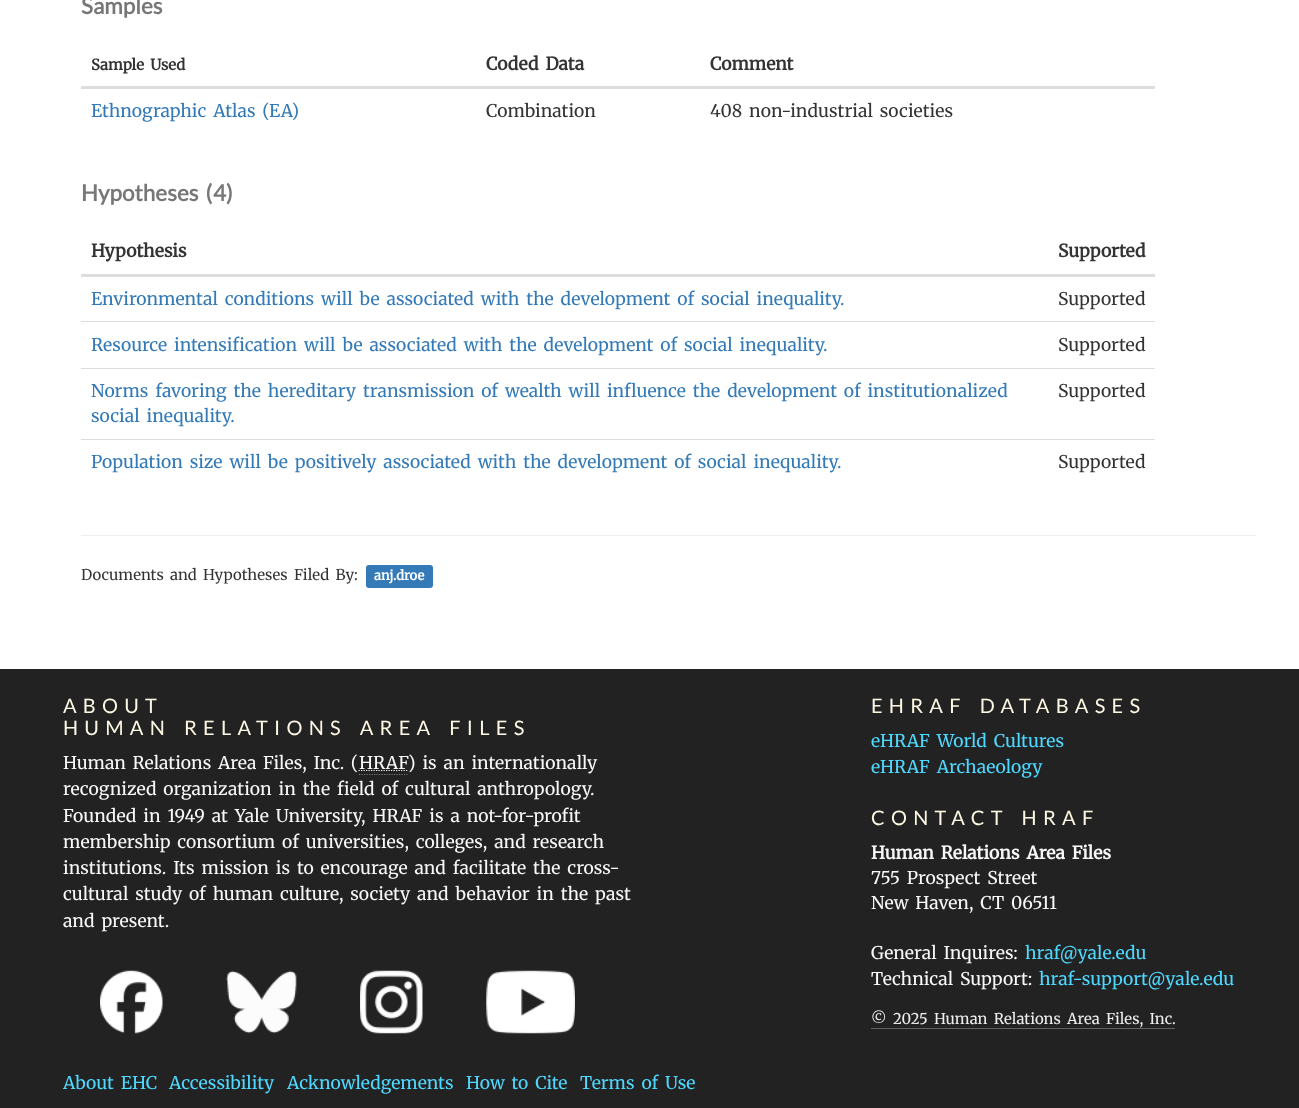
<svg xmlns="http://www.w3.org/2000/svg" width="1299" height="1108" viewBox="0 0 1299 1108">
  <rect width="100%" height="100%" fill="#222"/>
  <path d="M0 0h1299v669H0z" fill="#fff"/>
  <path d="M81 86h1074v3H81z" fill="#ddd"/>
  <path d="M81 274h1074v3H81z" fill="#ddd"/>
  <path d="M81 321h1074v1H81z" fill="#ddd"/>
  <path d="M81 368h1074v1H81z" fill="#ddd"/>
  <path d="M81 439h1074v1H81z" fill="#ddd"/>
  <path d="M81 535h1175v1H81z" fill="#eee"/>
  <rect x="366" y="565" width="67" height="23" rx="3" fill="#337ab7"/>
  <path d="M359 774.5H407.5" fill="none" stroke="#777" stroke-width="1.2" stroke-dasharray="1.25 1.25"/>
  <path d="M358.5 770.5H407.5" fill="none" stroke="#f8f8f8" stroke-width="1.2" stroke-dasharray="1.25 1.25"/>
  <image x="100" y="970" width="63" height="64" href="img/1.png"/>
  <image x="226" y="970" width="71" height="64" href="img/2.png"/>
  <image x="360" y="970" width="63" height="64" href="img/3.png"/>
  <image x="486" y="970" width="89" height="64" href="img/4.png"/>
  <path d="M871 1028h304v1H871z" fill="#636363"/>
  <text x="81" y="14" font-family="Lato" font-size="22.5" font-weight="bold" fill="#777">Samples</text>
  <text x="91" y="70" word-spacing="2.75" font-family="Merriweather" font-size="14.9" font-weight="bold" fill="#333">Sample Used</text>
  <g font-family="Merriweather" font-size="17.5" font-weight="bold" fill="#333">
    <text x="486" y="70" word-spacing="2.75">Coded Data</text>
    <text x="710" y="70">Comment</text>
  </g>
  <text x="91" y="117" word-spacing="2.75" font-family="Merriweather" font-size="17.5" font-weight="300" fill="#337ab7">Ethnographic Atlas (EA)</text>
  <g font-family="Merriweather" font-size="17.5" font-weight="300" fill="#333">
    <text x="486" y="117">Combination</text>
    <text x="710" y="117" word-spacing="2.75">408 non-industrial societies</text>
  </g>
  <g font-family="Lato" font-size="22.5" font-weight="bold" fill="#777">
    <text x="81" y="201" word-spacing="2.75">Hypotheses (</text>
    <text x="213" y="201">4)</text>
  </g>
  <g font-family="Merriweather" font-size="17.5" font-weight="bold" fill="#333">
    <text x="91" y="257">Hypothesis</text>
    <text x="1058" y="257">Supported</text>
  </g>
  <text x="91" y="305" word-spacing="2.75" font-family="Merriweather" font-size="17.5" font-weight="300" fill="#337ab7">Environmental conditions will be associated with the development of social inequality.</text>
  <text x="1058" y="305" font-family="Merriweather" font-size="17.5" font-weight="300" fill="#333">Supported</text>
  <text x="91" y="351" word-spacing="2.75" font-family="Merriweather" font-size="17.5" font-weight="300" fill="#337ab7">Resource intensification will be associated with the development of social inequality.</text>
  <text x="1058" y="351" font-family="Merriweather" font-size="17.5" font-weight="300" fill="#333">Supported</text>
  <g font-family="Merriweather" font-size="17.5" font-weight="300" fill="#337ab7">
    <text x="91" y="397" word-spacing="2.75">Norms favoring the hereditary transmission of wealth will influence the development of institutionalized</text>
    <text x="91" y="422" word-spacing="2.75">social inequality.</text>
  </g>
  <text x="1058" y="397" font-family="Merriweather" font-size="17.5" font-weight="300" fill="#333">Supported</text>
  <text x="91" y="468" word-spacing="2.75" font-family="Merriweather" font-size="17.5" font-weight="300" fill="#337ab7">Population size will be positively associated with the development of social inequality.</text>
  <text x="1058" y="468" font-family="Merriweather" font-size="17.5" font-weight="300" fill="#333">Supported</text>
  <text x="81" y="580" word-spacing="2.75" font-family="Merriweather" font-size="14.9" font-weight="300" fill="#333">Documents and Hypotheses Filed By:</text>
  <text x="374" y="580" font-family="Merriweather" font-size="13" font-weight="bold" fill="#fff">anj.droe</text>
  <g font-family="Lato" font-size="20" letter-spacing="6.25" fill="#fcf8e3">
    <text x="63" y="713">ABOUT</text>
    <text x="63" y="735" word-spacing="2.75">HUMAN RELATIONS AREA FILES</text>
  </g>
  <g font-family="Merriweather" font-size="17.5" font-weight="300" fill="#f8f8f8">
    <text x="63" y="769" word-spacing="2.5">Human Relations Area Files, Inc. (</text>
    <text x="359" y="769">HRAF</text>
    <text x="408" y="769" word-spacing="2.75">) is an internationally</text>
    <text x="63" y="795" word-spacing="2.75">recognized organization in the field of cultural anthropology.</text>
    <text x="63" y="822" word-spacing="2.75">Founded in 1949 at Yale University, HRAF is a not-for-profit</text>
    <text x="63" y="848" word-spacing="2.75">membership consortium of universities, colleges, and research</text>
    <text x="63" y="874" word-spacing="2.75">institutions. Its mission is to encourage and facilitate the cross-</text>
    <text x="63" y="900" word-spacing="2.75">cultural study of human culture, society and behavior in the past</text>
    <text x="63" y="927" word-spacing="2.75">and present.</text>
  </g>
  <text x="871" y="713" word-spacing="2.75" font-family="Lato" font-size="20" letter-spacing="6.25" fill="#fcf8e3">EHRAF DATABASES</text>
  <g font-family="Merriweather" font-size="17.5" font-weight="300" fill="#4fd8ff">
    <text x="871" y="747" word-spacing="2.75">eHRAF World Cultures</text>
    <text x="871" y="773" word-spacing="2.75">eHRAF Archaeology</text>
  </g>
  <text x="871" y="825" word-spacing="2.75" font-family="Lato" font-size="20" letter-spacing="6.25" fill="#fcf8e3">CONTACT HRAF</text>
  <text x="871" y="859" word-spacing="2.75" font-family="Merriweather" font-size="17.5" font-weight="bold" fill="#f8f8f8">Human Relations Area Files</text>
  <g font-family="Merriweather" font-size="17.5" font-weight="300" fill="#f8f8f8">
    <text x="871" y="884" word-spacing="2.75">755 Prospect Street</text>
    <text x="871" y="909" word-spacing="2.75">New Haven, CT 06511</text>
    <text x="871" y="959" word-spacing="2.75">General Inquires:</text>
  </g>
  <text x="1025" y="959" font-family="Merriweather" font-size="17.5" font-weight="300" fill="#4fd8ff">hraf@yale.edu</text>
  <text x="871" y="985" word-spacing="2.75" font-family="Merriweather" font-size="17.5" font-weight="300" fill="#f8f8f8">Technical Support:</text>
  <text x="1039" y="985" font-family="Merriweather" font-size="17.5" font-weight="300" fill="#4fd8ff">hraf-support@yale.edu</text>
  <g font-family="Merriweather" font-size="14.9" font-weight="300" fill="#eee">
    <text x="871" y="1024">©</text>
    <text x="893" y="1024">2025</text>
    <text x="934" y="1024" word-spacing="2.75">Human Relations Area Files, Inc.</text>
  </g>
  <g font-family="Merriweather" font-size="17.5" font-weight="300" fill="#4fd8ff">
    <text x="63" y="1089" word-spacing="2.75">About EHC</text>
    <text x="169" y="1089">Accessibility</text>
    <text x="287" y="1089">Acknowledgements</text>
    <text x="466" y="1089" word-spacing="2.75">How to Cite</text>
    <text x="580" y="1089" word-spacing="2.75">Terms of Use</text>
  </g>
</svg>
